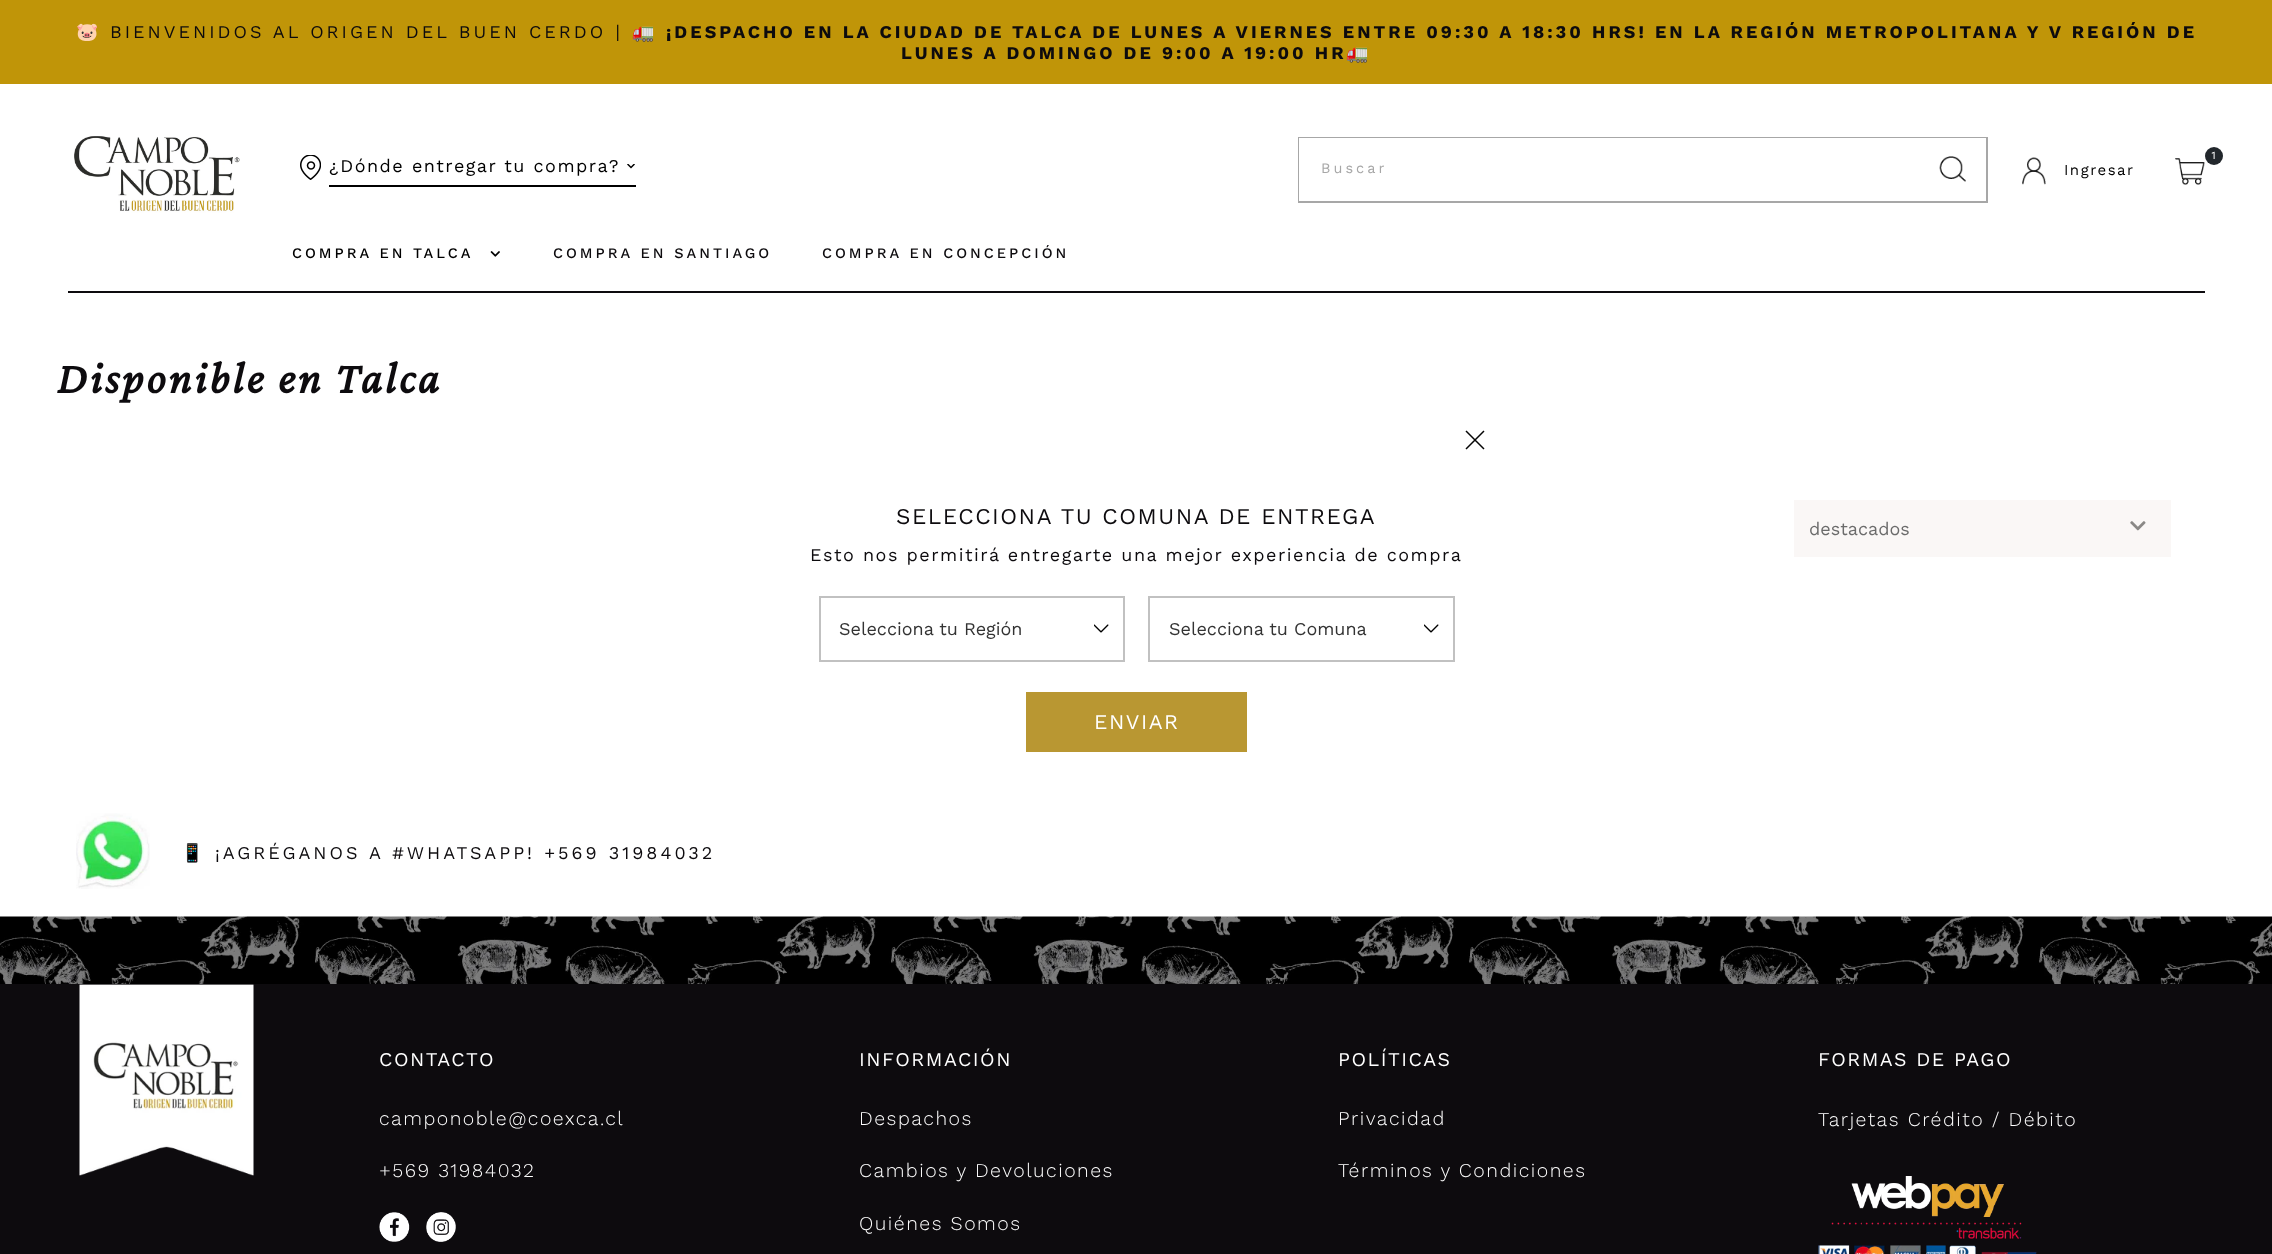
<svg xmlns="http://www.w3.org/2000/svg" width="2272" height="1254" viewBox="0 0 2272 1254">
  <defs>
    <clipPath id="clip1"><path d="M627 164h9v6H627z"/></clipPath>
  </defs>
  <rect width="100%" height="100%" fill="#fff"/>
  <path d="M1794 500h377v57H1794z" fill="#faf7f6"/>
  <path d="M0 0h2272v84H0z" fill="#c09508"/>
  <image x="74" y="136" width="166" height="77" href="img/1.png"/>
  <image x="300" y="155" width="21" height="25" href="img/2.png"/>
  <path d="M329 185h307v2H329z" fill="#000"/>
  <g clip-path="url(#clip1)">
    <path d="M627.5 164L631 167.5L634.5 164" fill="none" stroke="#000" stroke-width="1.5"/>
  </g>
  <path d="M1299 138h688v64H1299z" fill="none" stroke="#a7a7a7" stroke-width="2"/>
  <path d="M1299 138h687v63H1299z" fill="#fff"/>
  <image x="1939" y="156" width="27" height="26" href="img/3.png"/>
  <circle cx="2214" cy="156" r="9" fill="#22272c"/>
  <image x="2175" y="158" width="30" height="27" href="img/4.png"/>
  <image x="2022" y="157" width="24" height="28" href="img/5.png"/>
  <image x="490" y="251" width="10" height="6" href="img/6.png"/>
  <path d="M68 291h2137v2H68z" fill="#0d0b0e"/>
  <image x="2130" y="521" width="16" height="10" href="img/7.png"/>
  <path d="M1466 431L1484 449M1484 431L1466 449" fill="none" stroke="#050505" stroke-width="1.5"/>
  <image x="1094" y="624" width="15" height="9" href="img/8.png"/>
  <path d="M820 597h304v64H820z" fill="none" stroke="#c1c1c1" stroke-width="2"/>
  <image x="1424" y="624" width="15" height="9" href="img/8.png"/>
  <path d="M1149 597h305v64H1149z" fill="none" stroke="#c1c1c1" stroke-width="2"/>
  <path d="M1026 692h221v60H1026z" fill="#b99732"/>
  <image x="76" y="813" width="74" height="76" href="img/9.png"/>
  <path d="M0 984h2272v270H0z" fill="#0d0b0e"/>
  <image x="0" y="916" width="2272" height="68" href="img/10.png"/>
  <image x="79" y="984" width="175" height="192" href="img/11.png"/>
  <image x="379" y="1212" width="31" height="30" href="img/12.png"/>
  <image x="426" y="1212" width="30" height="30" href="img/13.png"/>
  <image x="1818" y="1176" width="219" height="78" href="img/14.png"/>
  <text x="76" y="38" font-family="Noto Color Emoji" font-size="18" letter-spacing="3" fill="#0d0b0e">🐷</text>
  <text x="110" y="38" font-family="Work Sans" font-size="18" letter-spacing="3" fill="#0d0b0e">BIENVENIDOS AL ORIGEN DEL BUEN CERDO |</text>
  <text x="632" y="38" font-family="Noto Color Emoji" font-size="18" letter-spacing="3" fill="#0d0b0e">🚛</text>
  <g font-family="Work Sans" font-size="18" font-weight="bold" letter-spacing="3" fill="#0d0b0e">
    <text x="666" y="38">¡DESPACHO EN LA CIUDAD DE TALCA DE LUNES A VIERNES ENTRE 09:30 A 18:30 HRS! EN LA REGIÓN METROPOLITANA Y V REGIÓN DE</text>
    <text x="901" y="59">LUNES A DOMINGO DE 9:00 A 19:00 HR</text>
  </g>
  <text x="1346" y="59" font-family="Noto Color Emoji" font-size="18" letter-spacing="3" fill="#0d0b0e">🚛</text>
  <text x="329" y="172" font-family="Work Sans" font-size="18" letter-spacing="1.5" fill="#000">¿Dónde entregar tu compra?</text>
  <text x="1321" y="173" font-family="Work Sans" font-size="14.5" letter-spacing="3" fill="#a7a7a7">Buscar</text>
  <text x="2211" y="159" font-family="Roboto" font-size="10" letter-spacing="1" fill="#fff">1</text>
  <text x="2064" y="175" font-family="Work Sans" font-size="15" letter-spacing="1.5" fill="#000">Ingresar</text>
  <text x="292" y="258" font-family="Work Sans" font-size="14.6" font-weight="500" letter-spacing="3" fill="#000">COMPRA EN TALCA</text>
  <g font-family="Work Sans" font-size="14.6" font-weight="500" letter-spacing="3" fill="#0d0b0e">
    <text x="553" y="258">COMPRA EN SANTIAGO</text>
    <text x="822" y="258">COMPRA EN CONCEPCIÓN</text>
  </g>
  <text x="57" y="393" font-family="Crimson Pro" font-size="45" font-weight="bold" font-style="italic" letter-spacing="3" fill="#0d0b0e">Disponible en Talca</text>
  <text x="1809" y="535" font-family="Work Sans" font-size="18" fill="#6b6b6b">destacados</text>
  <text x="896" y="524" font-family="Work Sans" font-size="22.5" letter-spacing="1.5" fill="#0d0b0e">SELECCIONA TU COMUNA DE ENTREGA</text>
  <text x="810" y="561" font-family="Work Sans" font-size="18" letter-spacing="1.5" fill="#0d0b0e">Esto nos permitirá entregarte una mejor experiencia de compra</text>
  <g font-family="Work Sans" font-size="18" fill="#333">
    <text x="839" y="635">Selecciona tu Región</text>
    <text x="1169" y="635">Selecciona tu Comuna</text>
  </g>
  <text x="1094" y="729" font-family="Work Sans" font-size="21" letter-spacing="1.5" fill="#fff">ENVIAR</text>
  <text x="181" y="859" font-family="Noto Color Emoji" font-size="18" letter-spacing="3" fill="#0d0b0e">📱</text>
  <text x="215" y="859" font-family="Work Sans" font-size="18" letter-spacing="3" fill="#0d0b0e">¡AGRÉGANOS A #WHATSAPP! +569 31984032</text>
  <text x="379" y="1066" font-family="Work Sans" font-size="19.5" letter-spacing="1.5" fill="#fff">CONTACTO</text>
  <g font-family="Work Sans" font-size="19.5" font-weight="300" letter-spacing="1.5" fill="#fff">
    <text x="379" y="1125">camponoble@coexca.cl</text>
    <text x="379" y="1177">+569 31984032</text>
  </g>
  <text x="859" y="1066" font-family="Work Sans" font-size="19.5" letter-spacing="1.5" fill="#fff">INFORMACIÓN</text>
  <g font-family="Work Sans" font-size="19.5" font-weight="300" letter-spacing="1.5" fill="#fff">
    <text x="859" y="1125">Despachos</text>
    <text x="859" y="1177">Cambios y Devoluciones</text>
    <text x="859" y="1230">Quiénes Somos</text>
  </g>
  <text x="1338" y="1066" font-family="Work Sans" font-size="19.5" letter-spacing="1.5" fill="#fff">POLÍTICAS</text>
  <g font-family="Work Sans" font-size="19.5" font-weight="300" letter-spacing="1.5" fill="#fff">
    <text x="1338" y="1125">Privacidad</text>
    <text x="1338" y="1177">Términos y Condiciones</text>
  </g>
  <text x="1818" y="1066" font-family="Work Sans" font-size="19.5" letter-spacing="1.5" fill="#fff">FORMAS DE PAGO</text>
  <text x="1818" y="1126" font-family="Work Sans" font-size="19.5" font-weight="300" letter-spacing="1.5" fill="#fff">Tarjetas Crédito / Débito</text>
</svg>
